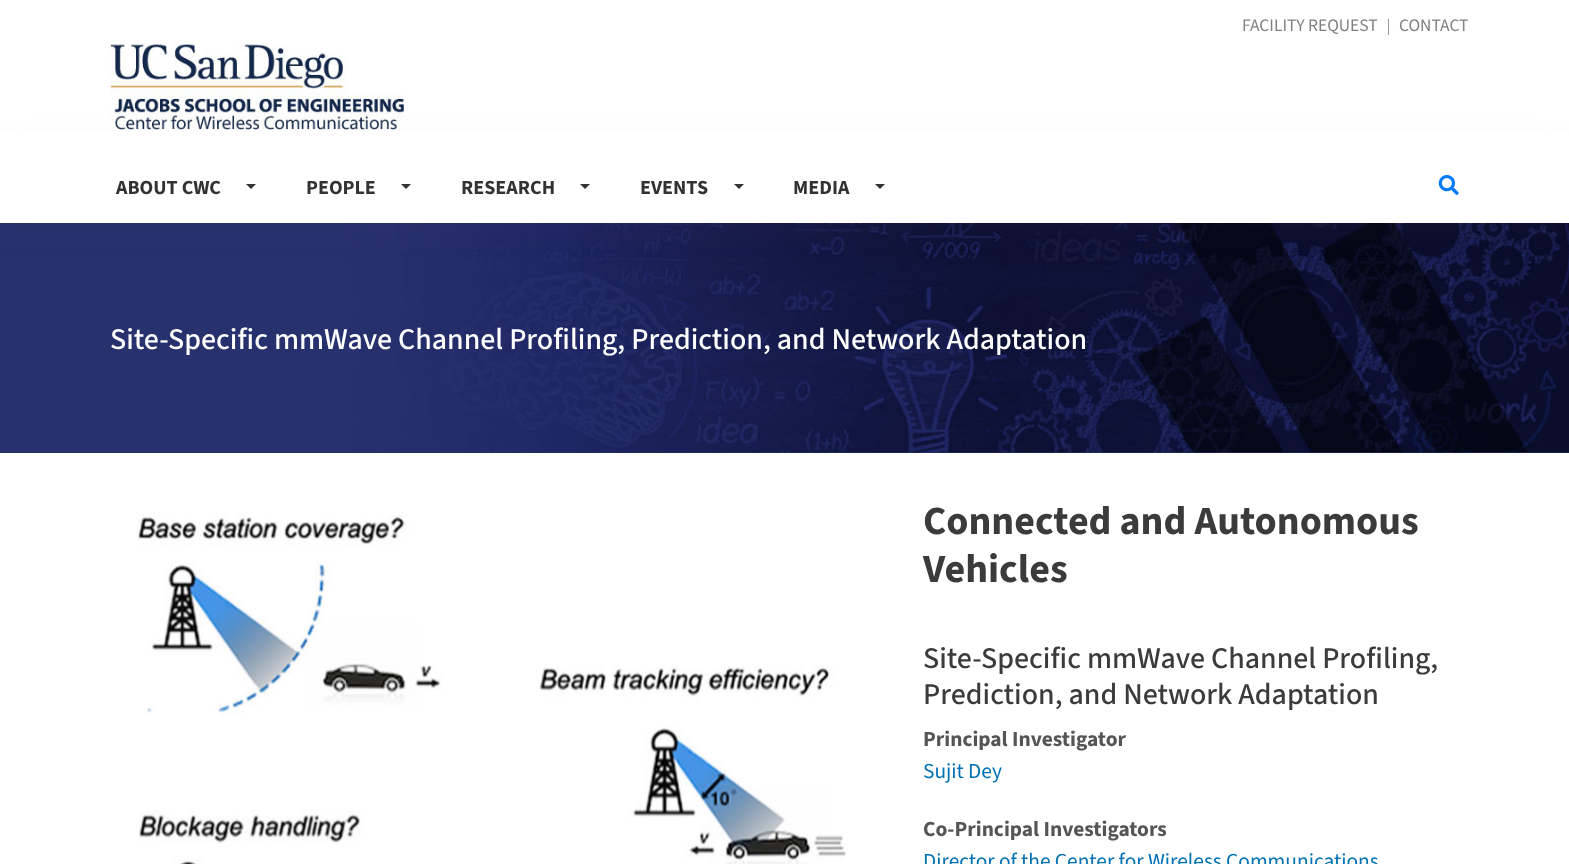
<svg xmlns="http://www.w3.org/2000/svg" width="1569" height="864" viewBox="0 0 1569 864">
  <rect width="100%" height="100%" fill="#fff"/>
  <path d="M1388 19h1v16H1388z" fill="#999"/>
  <path d="M0 452h1569v1H0z" fill="#27316e"/>
  <image x="0" y="223" width="1569" height="230" href="img/3.png"/>
  <path d="M0 153h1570v70H0z" fill="#523f6921" filter="blur(17.5px)"/>
  <image x="110" y="43" width="294" height="87" href="img/1.png"/>
  <path d="M0 131h1569v92H0z" fill="#fff"/>
  <path d="M246 184H256L251 189Z" fill="#333"/>
  <path d="M401 184H411L406 189Z" fill="#333"/>
  <path d="M580 184H590L585 189Z" fill="#333"/>
  <path d="M734 184H744L739 189Z" fill="#333"/>
  <path d="M875 184H885L880 189Z" fill="#333"/>
  <image x="1438" y="175" width="21" height="20" href="img/2.png"/>
  <image x="137" y="514" width="709" height="350" href="img/4.png"/>
  <g font-family="'Source Sans 3'" font-size="17.5" fill="#808080">
    <text x="1242" y="31">FACILITY REQUEST</text>
    <text x="1399" y="31">CONTACT</text>
  </g>
  <g font-family="'Source Sans 3'" font-size="20" font-weight="bold" fill="#333">
    <text x="116" y="194">ABOUT CWC</text>
    <text x="306" y="194">PEOPLE</text>
    <text x="461" y="194">RESEARCH</text>
    <text x="640" y="194">EVENTS</text>
    <text x="793" y="194">MEDIA</text>
  </g>
  <text x="110" y="349" font-family="'Source Sans 3'" font-size="30" font-weight="500" fill="#fff">Site-Specific mmWave Channel Profiling, Prediction, and Network Adaptation</text>
  <g font-family="'Source Sans 3'" font-size="40" font-weight="bold" fill="#3b3b3b">
    <text x="923" y="534">Connected and Autonomous</text>
    <text x="923" y="582">Vehicles</text>
  </g>
  <g font-family="'Source Sans 3'" font-size="30" font-weight="500" fill="#3b3b3b">
    <text x="923" y="668">Site-Specific mmWave Channel Profiling,</text>
    <text x="923" y="704">Prediction, and Network Adaptation</text>
  </g>
  <text x="923" y="746" font-family="'Source Sans 3'" font-size="21.4" font-weight="bold" fill="#555">Principal Investigator</text>
  <text x="923" y="778" font-family="'Source Sans 3'" font-size="21.4" fill="#0071b3">Sujit Dey</text>
  <text x="923" y="836" font-family="'Source Sans 3'" font-size="21.4" font-weight="bold" fill="#555">Co-Principal Investigators</text>
  <text x="923" y="868" font-family="'Source Sans 3'" font-size="21.4" fill="#0071b3">Director of the Center for Wireless Communications</text>
</svg>
